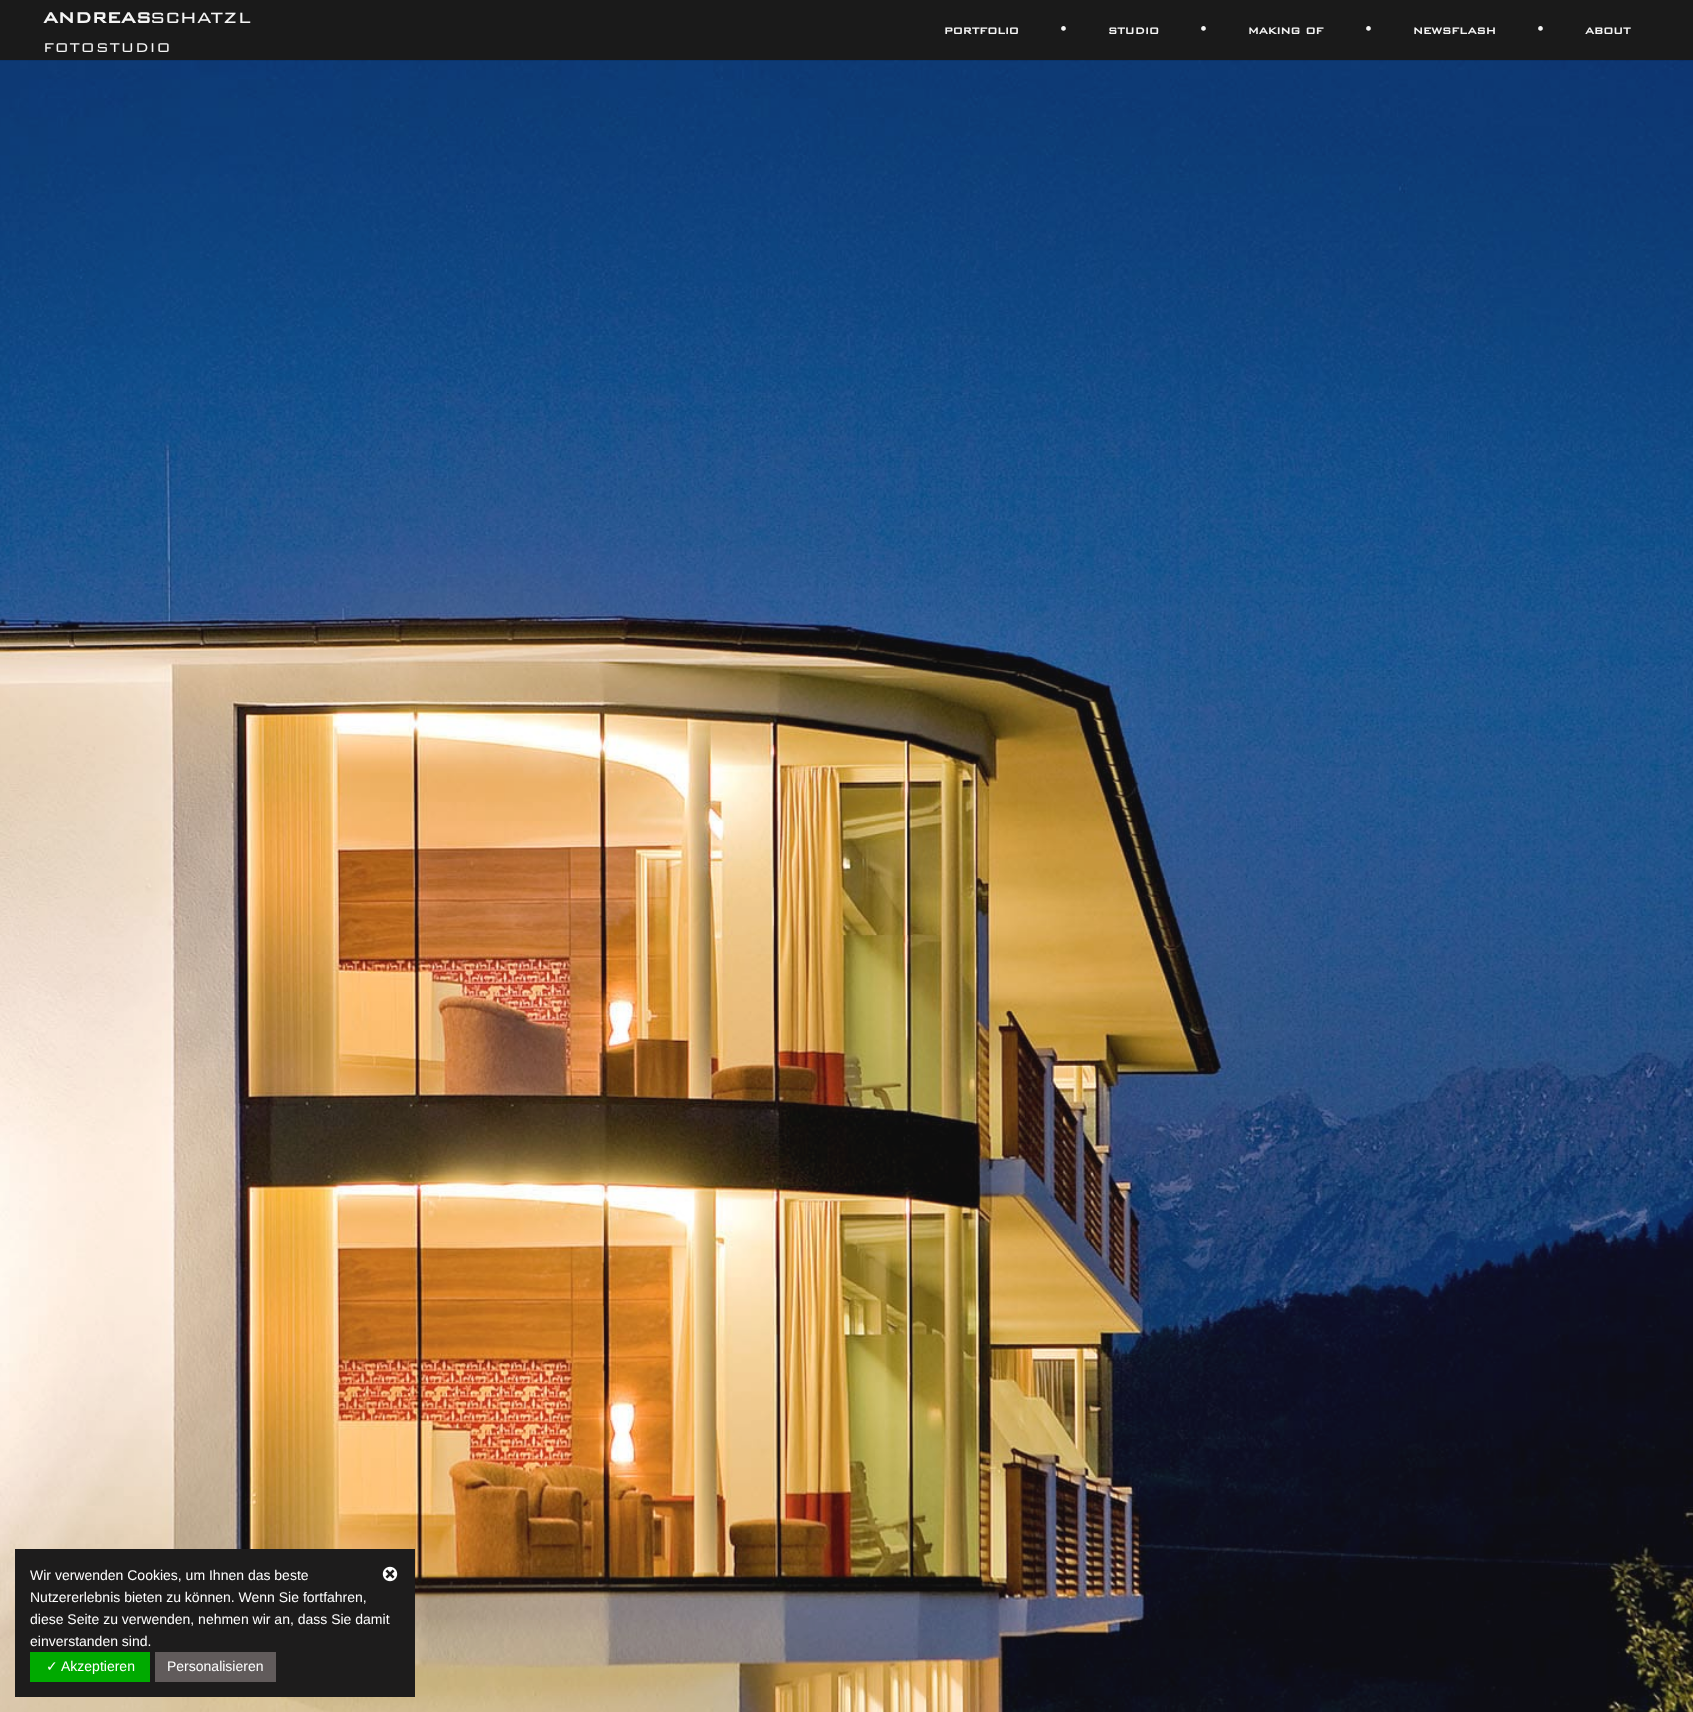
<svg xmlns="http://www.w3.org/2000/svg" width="1693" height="1712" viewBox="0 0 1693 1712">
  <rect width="100%" height="100%" fill="#fff"/>
  <image x="0" y="60" width="1693" height="1652" href="img/1.png"/>
  <path d="M0 60h1693v1H0z" fill="#00000014"/>
  <path d="M0 0h1693v60H0z" fill="#1a1a1a"/>
  <path d="M15 1549h400v148H15z" fill="#1d1c1c"/>
  <image x="382" y="1566" width="16" height="16" href="img/2.png"/>
  <path d="M30 1652h120v30H30z" fill="#0a0"/>
  <path d="M155 1652h121v30H155z" fill="#615b5b"/>
  <text x="43" y="23" font-family="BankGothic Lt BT" font-size="24" font-weight="bold" fill="#f5f5f5">andreas</text>
  <text x="150" y="23" font-family="BankGothic Lt BT" font-size="24" font-weight="300" fill="#f5f5f5">schatzl</text>
  <text x="43" y="52" font-family="BankGothic Lt BT" font-size="17" font-weight="300" letter-spacing="0.75" fill="#f5f5f5">FOTOSTUDIO</text>
  <g font-family="BankGothic Lt BT" font-size="14.5" font-weight="bold" fill="#f5f5f5">
    <text x="944" y="34">portfolio</text>
    <text x="1059" y="34">•</text>
    <text x="1108" y="34">studio</text>
    <text x="1199" y="34">•</text>
    <text x="1248" y="34">making of</text>
    <text x="1364" y="34">•</text>
    <text x="1413" y="34">newsflash</text>
    <text x="1536" y="34">•</text>
    <text x="1585" y="34">about</text>
  </g>
  <g font-family="Liberation Sans" font-size="14" fill="#fff">
    <text x="30" y="1580">Wir verwenden Cookies, um Ihnen das beste</text>
    <text x="30" y="1602">Nutzererlebnis bieten zu können. Wenn Sie fortfahren,</text>
    <text x="30" y="1624">diese Seite zu verwenden, nehmen wir an, dass Sie damit</text>
    <text x="30" y="1646">einverstanden sind.</text>
  </g>
  <text x="46" y="1671" font-family="DejaVu Sans" font-size="14" fill="#fff">✓</text>
  <g font-family="Liberation Sans" font-size="14" fill="#fff">
    <text x="61" y="1671">Akzeptieren</text>
    <text x="167" y="1671">Personalisieren</text>
  </g>
</svg>
